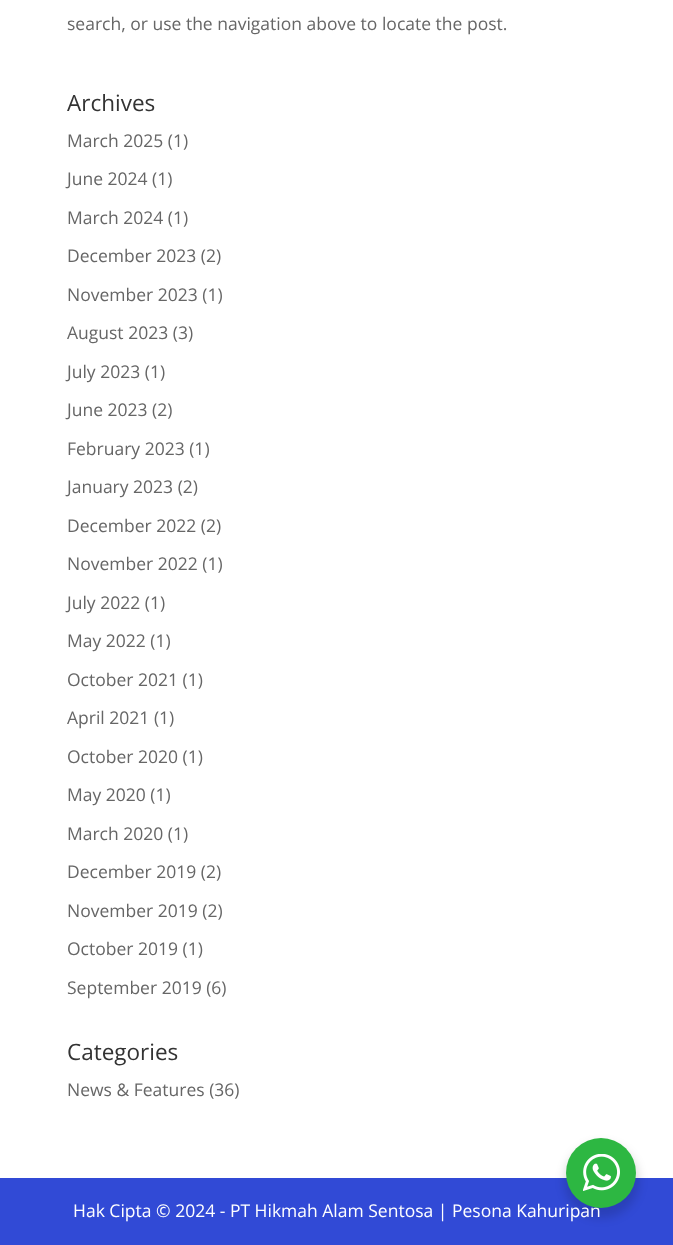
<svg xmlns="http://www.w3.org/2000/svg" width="673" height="1245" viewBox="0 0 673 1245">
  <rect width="100%" height="100%" fill="#fff"/>
  <path d="M0 1178h673v67H0z" fill="#314ad6"/>
  <rect x="564" y="1143" width="75" height="75" rx="37.5" fill="#00000024" filter="blur(5px)"/>
  <text x="67" y="30" font-family="Open Sans" font-size="17.5" fill="#666">search, or use the navigation above to locate the post.</text>
  <text x="67" y="111" font-family="Open Sans" font-size="22.5" fill="#333">Archives</text>
  <g font-family="Open Sans" font-size="17.5" fill="#666">
    <text x="67" y="147">March 2025 (1)</text>
    <text x="67" y="185">June 2024 (1)</text>
    <text x="67" y="224">March 2024 (1)</text>
    <text x="67" y="262">December 2023 (2)</text>
    <text x="67" y="301">November 2023 (1)</text>
    <text x="67" y="339">August 2023 (3)</text>
    <text x="67" y="378">July 2023 (1)</text>
    <text x="67" y="416">June 2023 (2)</text>
    <text x="67" y="455">February 2023 (1)</text>
    <text x="67" y="493">January 2023 (2)</text>
    <text x="67" y="532">December 2022 (2)</text>
    <text x="67" y="570">November 2022 (1)</text>
    <text x="67" y="609">July 2022 (1)</text>
    <text x="67" y="647">May 2022 (1)</text>
    <text x="67" y="686">October 2021 (1)</text>
    <text x="67" y="724">April 2021 (1)</text>
    <text x="67" y="763">October 2020 (1)</text>
    <text x="67" y="801">May 2020 (1)</text>
    <text x="67" y="840">March 2020 (1)</text>
    <text x="67" y="878">December 2019 (2)</text>
    <text x="67" y="917">November 2019 (2)</text>
    <text x="67" y="955">October 2019 (1)</text>
    <text x="67" y="994">September 2019 (6)</text>
  </g>
  <text x="67" y="1060" font-family="Open Sans" font-size="22.5" fill="#333">Categories</text>
  <text x="67" y="1096" font-family="Open Sans" font-size="17.5" fill="#666">News &amp; Features (36)</text>
  <text x="73" y="1217" font-family="Open Sans" font-size="17.5" fill="#fff">Hak Cipta © 2024 - PT Hikmah Alam Sentosa | Pesona Kahuripan</text>
  <circle cx="601" cy="1173" r="35" fill="#2db742"/>
  <image x="583" y="1154" width="37" height="37" href="img/1.png"/>
</svg>
